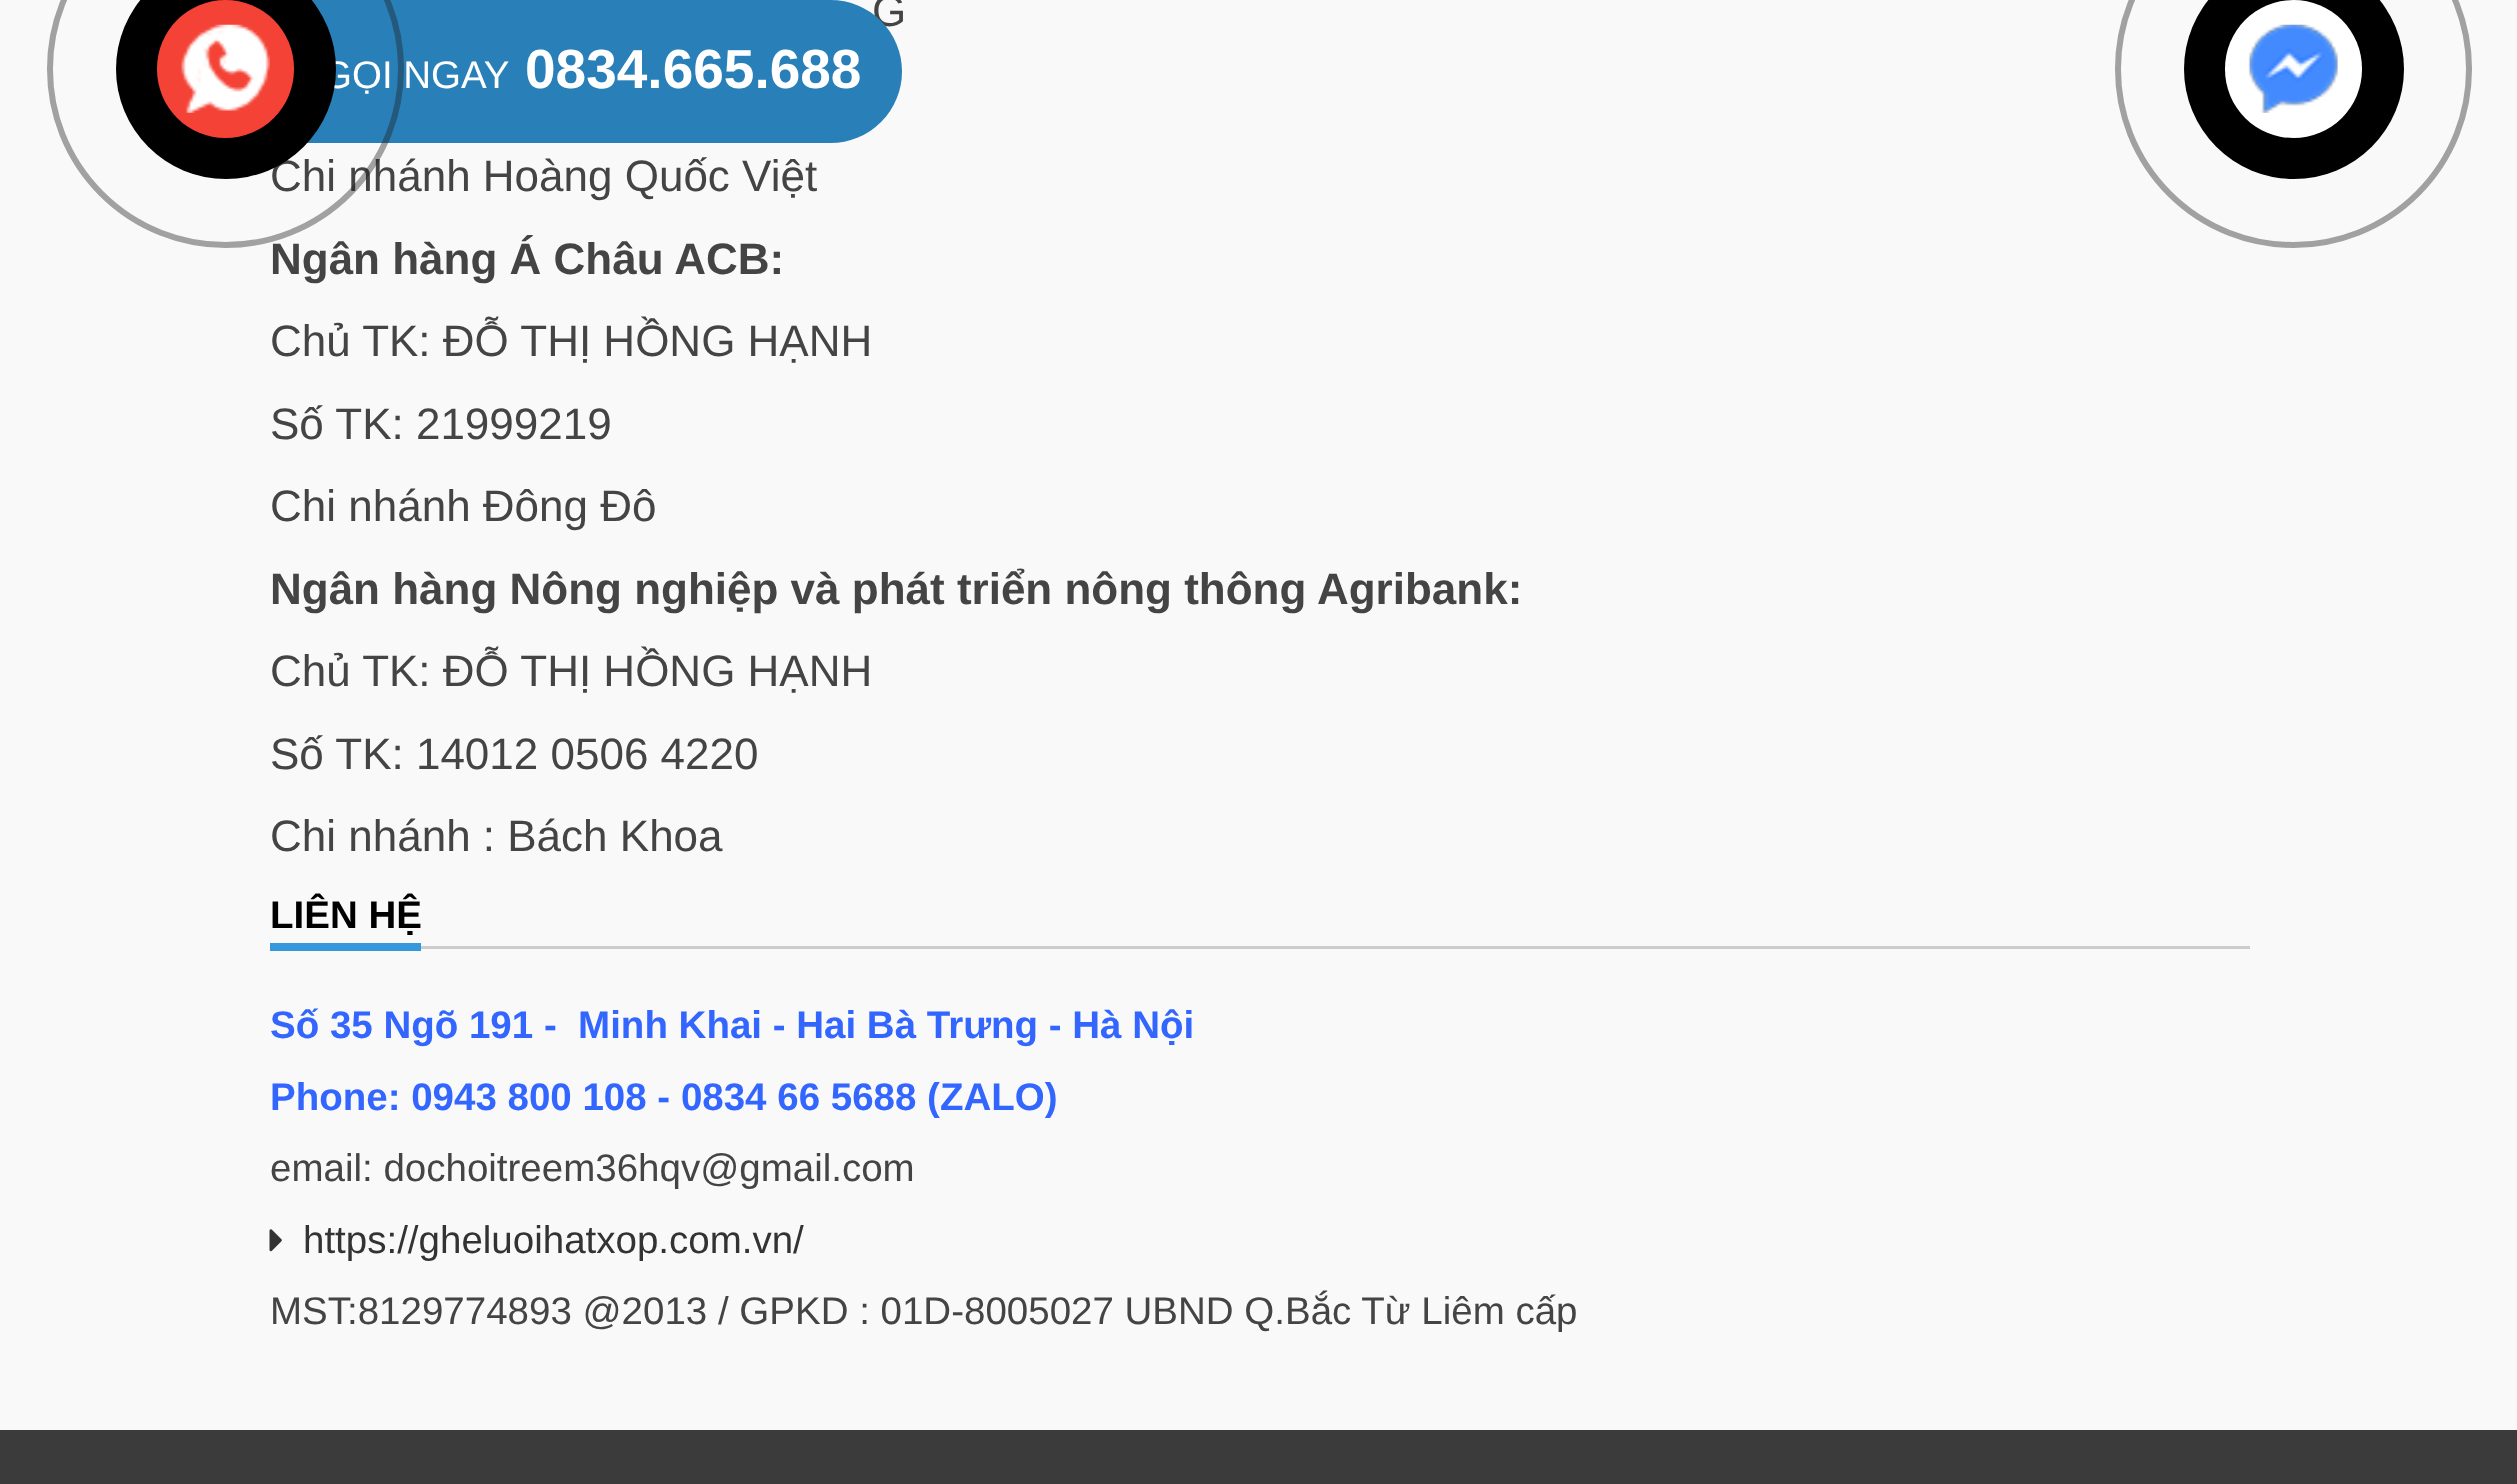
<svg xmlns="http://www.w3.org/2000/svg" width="2517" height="1484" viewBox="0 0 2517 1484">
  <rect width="100%" height="100%" fill="#f9f9f9"/>
  <path d="M421 946h1829v3H421z" fill="#ccc"/>
  <path d="M270 943h151v8H270z" fill="#3498db"/>
  <image x="269" y="1229" width="13" height="23" href="img/1.png"/>
  <path d="M0 1430h2517v54H0z" fill="#3b3b3b"/>
  <rect x="2118" y="-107" width="351" height="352" rx="175.5" fill="none" stroke="#a1a1a1" stroke-width="6"/>
  <circle cx="2294" cy="69" r="110" fill="#000"/>
  <rect x="2225" width="137" height="138" rx="68.5" fill="#fff"/>
  <image x="2248" y="24" width="90" height="89" href="img/2.png"/>
  <g font-family="Liberation Sans" font-size="44" fill="#444">
    <text x="872" y="26">G</text>
    <text x="270" y="191">Chi nhánh Hoàng Quốc Việt</text>
  </g>
  <text x="270" y="274" font-family="Liberation Sans" font-size="44" font-weight="bold" fill="#444">Ngân hàng Á Châu ACB:</text>
  <g font-family="Liberation Sans" font-size="44" fill="#444">
    <text x="270" y="356">Chủ TK: ĐỖ THỊ HỒNG HẠNH</text>
    <text x="270" y="439">Số TK: 21999219</text>
    <text x="270" y="521">Chi nhánh Đông Đô</text>
  </g>
  <text x="270" y="604" font-family="Liberation Sans" font-size="44" font-weight="bold" fill="#444">Ngân hàng Nông nghiệp và phát triển nông thông Agribank:</text>
  <g font-family="Liberation Sans" font-size="44" fill="#444">
    <text x="270" y="686">Chủ TK: ĐỖ THỊ HỒNG HẠNH</text>
    <text x="270" y="769">Số TK: 14012 0506 4220</text>
    <text x="270" y="851">Chi nhánh : Bách Khoa</text>
  </g>
  <text x="270" y="928" font-family="Liberation Sans" font-size="38.5" font-weight="bold" fill="#000">LIÊN HỆ</text>
  <g font-family="Liberation Sans" font-size="38.5" font-weight="bold" fill="#36f">
    <text x="270" y="1038" xml:space="preserve">Số 35 Ngõ 191 -  Minh Khai - Hai Bà Trưng - Hà Nội</text>
    <text x="270" y="1110">Phone: 0943 800 108 - 0834 66 5688 (ZALO)</text>
  </g>
  <text x="270" y="1181" font-family="Liberation Sans" font-size="38.5" fill="#444">email: dochoitreem36hqv@gmail.com</text>
  <text x="303" y="1253" font-family="Liberation Sans" font-size="38.5" fill="#333">https://gheluoihatxop.com.vn/</text>
  <text x="270" y="1324" font-family="Liberation Sans" font-size="38.5" fill="#444">MST:8129774893 @2013 / GPKD : 01D-8005027 UBND Q.Bắc Từ Liêm cấp</text>
  <rect x="157" width="745" height="143" rx="71.5" fill="#2980b9"/>
  <text x="322" y="88" font-family="Liberation Sans" font-size="38.5" fill="#fff">GỌI NGAY</text>
  <rect x="50" y="-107" width="351" height="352" rx="175.5" fill="none" stroke="#1e1e1e66" stroke-width="6"/>
  <circle cx="226" cy="69" r="110" fill="#000"/>
  <rect x="157" width="137" height="138" rx="68.5" fill="#f44336"/>
  <image x="180" y="24" width="90" height="89" href="img/3.png"/>
  <text x="525" y="88" font-family="Liberation Sans" font-size="55" font-weight="bold" fill="#fff">0834.665.688</text>
</svg>
